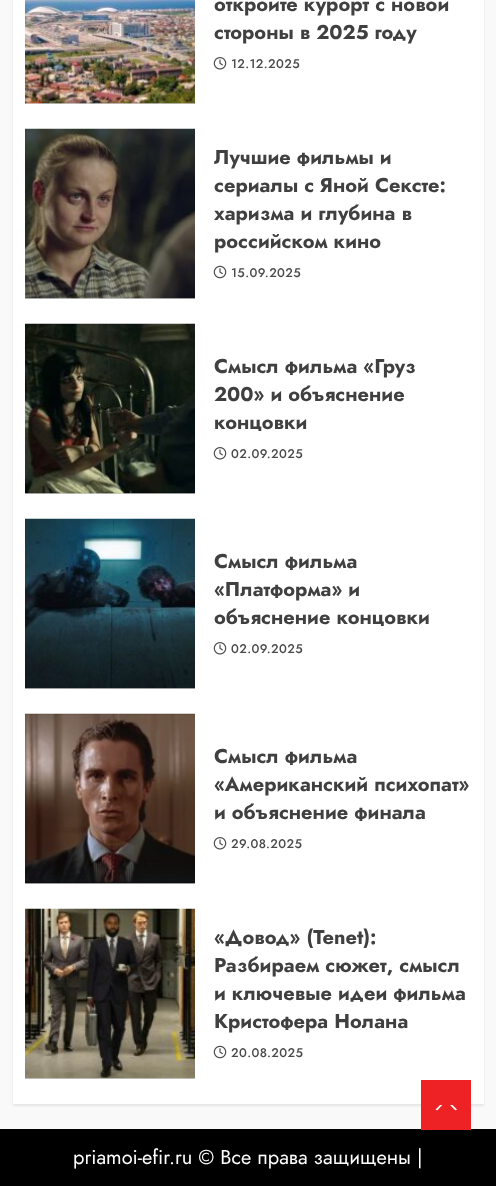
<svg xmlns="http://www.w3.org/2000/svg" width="496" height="1186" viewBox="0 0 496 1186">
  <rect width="100%" height="100%" fill="#f9f9f9"/>
  <path d="M13 -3h471v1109H13z" fill="#00000014" filter="blur(1px)"/>
  <path d="M13 0h471v1104H13z" fill="#fff"/>
  <path d="M25 103h170v1H25z" fill="#ccc"/>
  <image x="25" y="0" width="170" height="104" href="img/1.png"/>
  <image x="213" y="57" width="14" height="13" href="img/2.png"/>
  <path d="M25 298h170v1H25z" fill="#ccc"/>
  <image x="25" y="128" width="170" height="171" href="img/3.png"/>
  <image x="213" y="265" width="14" height="14" href="img/4.png"/>
  <path d="M25 493h170v1H25z" fill="#ccc"/>
  <image x="25" y="323" width="170" height="171" href="img/5.png"/>
  <image x="213" y="447" width="14" height="13" href="img/2.png"/>
  <path d="M25 688h170v1H25z" fill="#ccc"/>
  <image x="25" y="518" width="170" height="171" href="img/6.png"/>
  <image x="213" y="642" width="14" height="13" href="img/2.png"/>
  <path d="M25 883h170v1H25z" fill="#ccc"/>
  <image x="25" y="713" width="170" height="171" href="img/7.png"/>
  <image x="213" y="837" width="14" height="13" href="img/2.png"/>
  <path d="M25 1078h170v1H25z" fill="#ccc"/>
  <image x="25" y="908" width="170" height="171" href="img/8.png"/>
  <image x="213" y="1045" width="14" height="14" href="img/4.png"/>
  <path d="M0 1129h496v57H0z" fill="#000"/>
  <path d="M421 1080h50v50H421z" fill="#ee2224"/>
  <path d="M457 1109.5C454 1112 449.5 1111 446 1111C443 1111 438.5 1112 435.5 1109.5L440 1105H452.5Z" fill="#fff"/>
  <path d="M459 1114H434L446 1101Z" fill="#ee2224"/>
  <g font-family="Jost" font-size="20" font-weight="bold" fill="#404040">
    <text x="214" y="11">откройте курорт с новой</text>
    <text x="214" y="39">стороны в 2025 году</text>
  </g>
  <text x="231" y="68" font-family="Jost" font-size="12.5" font-weight="500" letter-spacing="0.4" fill="#4a4a4a">12.12.2025</text>
  <g font-family="Jost" font-size="20" font-weight="bold" fill="#404040">
    <text x="214" y="164">Лучшие фильмы и</text>
    <text x="214" y="192">сериалы с Яной Сексте:</text>
    <text x="214" y="220">харизма и глубина в</text>
    <text x="214" y="248">российском кино</text>
  </g>
  <text x="231" y="277" font-family="Jost" font-size="12.5" font-weight="500" letter-spacing="0.4" fill="#4a4a4a">15.09.2025</text>
  <g font-family="Jost" font-size="20" font-weight="bold" fill="#404040">
    <text x="214" y="373">Смысл фильма «Груз</text>
    <text x="214" y="401">200» и объяснение</text>
    <text x="214" y="429">концовки</text>
  </g>
  <text x="231" y="458" font-family="Jost" font-size="12.5" font-weight="500" letter-spacing="0.4" fill="#4a4a4a">02.09.2025</text>
  <g font-family="Jost" font-size="20" font-weight="bold" fill="#404040">
    <text x="214" y="568">Смысл фильма</text>
    <text x="214" y="596">«Платформа» и</text>
    <text x="214" y="624">объяснение концовки</text>
  </g>
  <text x="231" y="653" font-family="Jost" font-size="12.5" font-weight="500" letter-spacing="0.4" fill="#4a4a4a">02.09.2025</text>
  <g font-family="Jost" font-size="20" font-weight="bold" fill="#404040">
    <text x="214" y="763">Смысл фильма</text>
    <text x="214" y="791">«Американский психопат»</text>
    <text x="214" y="819">и объяснение финала</text>
  </g>
  <text x="231" y="848" font-family="Jost" font-size="12.5" font-weight="500" letter-spacing="0.4" fill="#4a4a4a">29.08.2025</text>
  <g font-family="Jost" font-size="20" font-weight="bold" fill="#404040">
    <text x="214" y="944">«Довод» (Tenet):</text>
    <text x="214" y="972">Разбираем сюжет, смысл</text>
    <text x="214" y="1000">и ключевые идеи фильма</text>
    <text x="214" y="1028">Кристофера Нолана</text>
  </g>
  <text x="231" y="1057" font-family="Jost" font-size="12.5" font-weight="500" letter-spacing="0.4" fill="#4a4a4a">20.08.2025</text>
  <text x="73" y="1164" font-family="Jost" font-size="20" fill="#fff">priamoi-efir.ru © Все права защищены |</text>
</svg>
